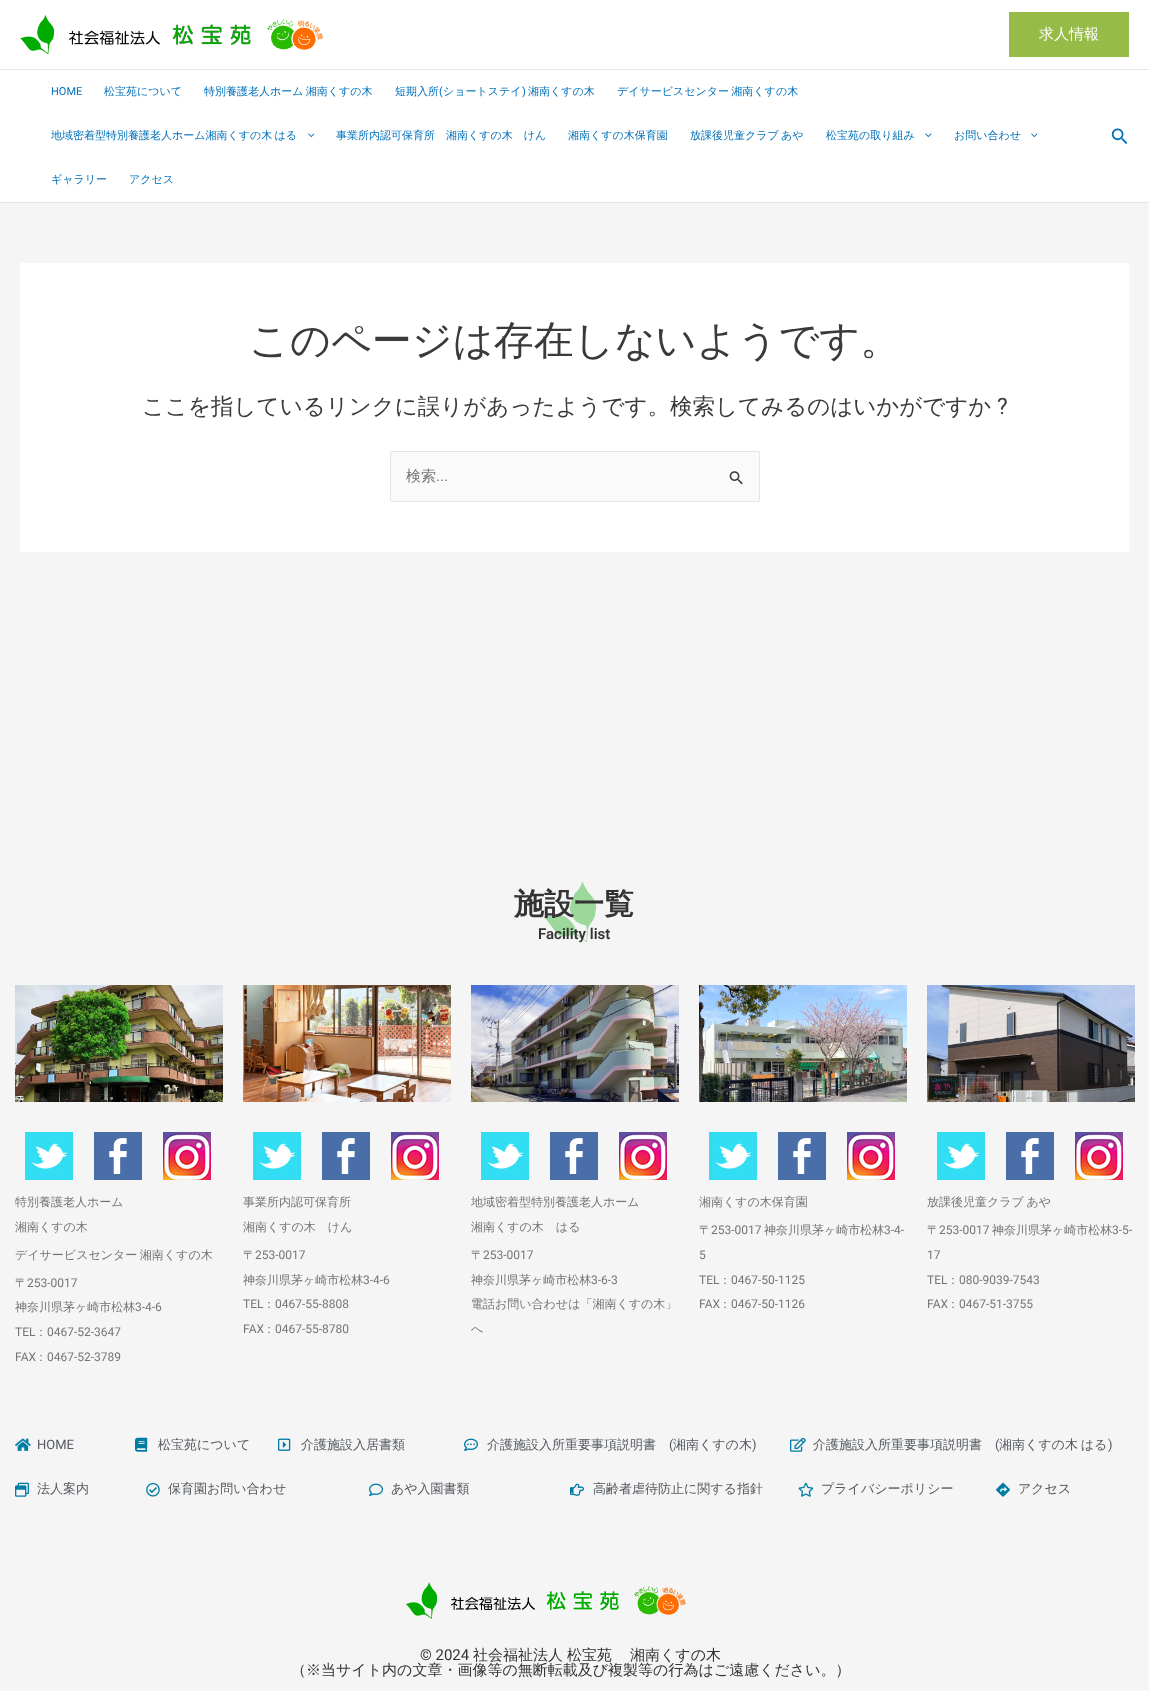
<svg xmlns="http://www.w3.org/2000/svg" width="1149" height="1691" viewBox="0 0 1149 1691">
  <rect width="100%" height="100%" fill="#f5f5f5"/>
  <path d="M0 0h1149v69H0z" fill="#fff"/>
  <path d="M0 69h1149v1H0z" fill="#e5e5e5"/>
  <image x="20" y="15" width="303" height="39" href="img/1.png"/>
  <path d="M1009 12h120v45H1009z" fill="#96bb46"/>
  <path d="M0 70h1149v132H0z" fill="#fff"/>
  <path d="M0 202h1149v1H0z" fill="#e5e5e5"/>
  <image x="308" y="133" width="6" height="5" href="img/2.png"/>
  <image x="925" y="133" width="7" height="5" href="img/3.png"/>
  <image x="1031" y="133" width="6" height="5" href="img/2.png"/>
  <image x="1111" y="128" width="16" height="17" href="img/4.png"/>
  <path d="M20 263h1109v289H20z" fill="#fff"/>
  <rect x="390.5" y="451.5" width="369" height="50" rx="1.5" fill="#fafafa" stroke="#e5e5e5"/>
  <image x="729" y="471" width="14" height="14" href="img/5.png"/>
  <image x="544" y="881" width="52" height="61" href="img/6.png"/>
  <image x="15" y="985" width="208" height="117" href="img/7.png"/>
  <image x="25" y="1132" width="48" height="48" href="img/8.png"/>
  <image x="94" y="1132" width="48" height="48" href="img/9.png"/>
  <image x="163" y="1132" width="48" height="48" href="img/10.png"/>
  <image x="243" y="985" width="208" height="117" href="img/11.png"/>
  <image x="253" y="1132" width="48" height="48" href="img/8.png"/>
  <image x="322" y="1132" width="48" height="48" href="img/9.png"/>
  <image x="391" y="1132" width="48" height="48" href="img/10.png"/>
  <image x="471" y="985" width="208" height="117" href="img/12.png"/>
  <image x="481" y="1132" width="48" height="48" href="img/8.png"/>
  <image x="550" y="1132" width="48" height="48" href="img/9.png"/>
  <image x="619" y="1132" width="48" height="48" href="img/10.png"/>
  <image x="699" y="985" width="208" height="117" href="img/13.png"/>
  <image x="709" y="1132" width="48" height="48" href="img/8.png"/>
  <image x="778" y="1132" width="48" height="48" href="img/9.png"/>
  <image x="847" y="1132" width="48" height="48" href="img/10.png"/>
  <image x="927" y="985" width="208" height="117" href="img/14.png"/>
  <image x="937" y="1132" width="48" height="48" href="img/8.png"/>
  <image x="1006" y="1132" width="48" height="48" href="img/9.png"/>
  <image x="1075" y="1132" width="48" height="48" href="img/10.png"/>
  <image x="15" y="1438" width="16" height="13" href="img/15.png"/>
  <image x="135" y="1437" width="13" height="15" href="img/16.png"/>
  <image x="278" y="1438" width="13" height="13" href="img/17.png"/>
  <image x="464" y="1438" width="14" height="13" href="img/18.png"/>
  <image x="790" y="1437" width="16" height="15" href="img/19.png"/>
  <image x="15" y="1482" width="14" height="15" href="img/20.png"/>
  <image x="146" y="1483" width="14" height="14" href="img/21.png"/>
  <image x="369" y="1483" width="14" height="13" href="img/22.png"/>
  <image x="570" y="1483" width="14" height="13" href="img/23.png"/>
  <image x="798" y="1482" width="16" height="15" href="img/24.png"/>
  <image x="996" y="1482" width="14" height="15" href="img/25.png"/>
  <image x="405" y="1582" width="281" height="37" href="img/26.png"/>
  <text x="1039" y="39" font-family="WenQuanYi Zen Hei" font-size="15" font-weight="500" fill="#fff">求人情報</text>
  <text x="51" y="95" font-family="Roboto" font-size="11" fill="#0170b9">HOME</text>
  <g font-family="WenQuanYi Zen Hei" font-size="11" font-weight="500" fill="#0170b9">
    <text x="104" y="95">松宝苑について</text>
    <text x="204" y="95" word-spacing="-1">特別養護老人ホーム 湘南くすの木</text>
    <text x="395" y="95">短期入所</text>
  </g>
  <text x="439" y="95" font-family="Roboto" font-size="11" fill="#0170b9">(</text>
  <text x="443" y="95" font-family="WenQuanYi Zen Hei" font-size="11" font-weight="500" fill="#0170b9">ショートステイ</text>
  <text x="522" y="95" font-family="Roboto" font-size="11" fill="#0170b9">)</text>
  <g font-family="WenQuanYi Zen Hei" font-size="11" font-weight="500" fill="#0170b9">
    <text x="528" y="95">湘南くすの木</text>
    <text x="617" y="95" word-spacing="-1">デイサービスセンター 湘南くすの木</text>
    <text x="51" y="139" word-spacing="-1">地域密着型特別養護老人ホーム湘南くすの木 はる</text>
    <text x="336" y="139">事業所内認可保育所　湘南くすの木　けん</text>
    <text x="568" y="139">湘南くすの木保育園</text>
    <text x="690" y="139" word-spacing="-1">放課後児童クラブ あや</text>
    <text x="826" y="139">松宝苑の取り組み</text>
    <text x="954" y="139">お問い合わせ</text>
    <text x="51" y="183">ギャラリー</text>
    <text x="129" y="183">アクセス</text>
  </g>
  <text x="249" y="354" font-family="WenQuanYi Zen Hei" font-size="40" font-weight="500" fill="#3a3a3a">このページは存在しないようです。</text>
  <text x="142" y="414" font-family="WenQuanYi Zen Hei" font-size="22.5" font-weight="500" fill="#3a3a3a">ここを指しているリンクに誤りがあったようです。検索してみるのはいかがですか</text>
  <text x="997" y="414" font-family="Roboto" font-size="22.5" fill="#3a3a3a">?</text>
  <text x="406" y="481" font-family="WenQuanYi Zen Hei" font-size="15" font-weight="500" fill="#757575">検索</text>
  <text x="436" y="481" font-family="Roboto" font-size="15" fill="#757575">...</text>
  <text x="514" y="914" font-family="WenQuanYi Zen Hei" font-size="30" font-weight="bold" fill="#333">施設一覧</text>
  <text x="538" y="939" font-family="Roboto" font-size="15" font-weight="600" fill="#333">Facility list</text>
  <g font-family="WenQuanYi Zen Hei" font-size="12" font-weight="500" fill="#757575">
    <text x="15" y="1206">特別養護老人ホーム</text>
    <text x="15" y="1231">湘南くすの木</text>
    <text x="15" y="1259" word-spacing="-1">デイサービスセンター 湘南くすの木</text>
    <text x="15" y="1287">〒</text>
  </g>
  <text x="27" y="1287" font-family="Roboto" font-size="12" fill="#757575">253-0017</text>
  <text x="15" y="1311" font-family="WenQuanYi Zen Hei" font-size="12" font-weight="500" fill="#757575">神奈川県茅ヶ崎市松林</text>
  <g font-family="Roboto" font-size="12" fill="#757575">
    <text x="135" y="1311">3-4-6</text>
    <text x="15" y="1336">TEL</text>
  </g>
  <text x="35" y="1336" font-family="WenQuanYi Zen Hei" font-size="12" font-weight="500" fill="#757575">：</text>
  <g font-family="Roboto" font-size="12" fill="#757575">
    <text x="47" y="1336">0467-52-3647</text>
    <text x="15" y="1361">FAX</text>
  </g>
  <text x="35" y="1361" font-family="WenQuanYi Zen Hei" font-size="12" font-weight="500" fill="#757575">：</text>
  <text x="47" y="1361" font-family="Roboto" font-size="12" fill="#757575">0467-52-3789</text>
  <g font-family="WenQuanYi Zen Hei" font-size="12" font-weight="500" fill="#757575">
    <text x="243" y="1206">事業所内認可保育所</text>
    <text x="243" y="1231">湘南くすの木　けん</text>
    <text x="243" y="1259">〒</text>
  </g>
  <text x="255" y="1259" font-family="Roboto" font-size="12" fill="#757575">253-0017</text>
  <text x="243" y="1284" font-family="WenQuanYi Zen Hei" font-size="12" font-weight="500" fill="#757575">神奈川県茅ヶ崎市松林</text>
  <g font-family="Roboto" font-size="12" fill="#757575">
    <text x="363" y="1284">3-4-6</text>
    <text x="243" y="1308">TEL</text>
  </g>
  <text x="263" y="1308" font-family="WenQuanYi Zen Hei" font-size="12" font-weight="500" fill="#757575">：</text>
  <g font-family="Roboto" font-size="12" fill="#757575">
    <text x="275" y="1308">0467-55-8808</text>
    <text x="243" y="1333">FAX</text>
  </g>
  <text x="263" y="1333" font-family="WenQuanYi Zen Hei" font-size="12" font-weight="500" fill="#757575">：</text>
  <text x="275" y="1333" font-family="Roboto" font-size="12" fill="#757575">0467-55-8780</text>
  <g font-family="WenQuanYi Zen Hei" font-size="12" font-weight="500" fill="#757575">
    <text x="471" y="1206">地域密着型特別養護老人ホーム</text>
    <text x="471" y="1231">湘南くすの木　はる</text>
    <text x="471" y="1259">〒</text>
  </g>
  <text x="483" y="1259" font-family="Roboto" font-size="12" fill="#757575">253-0017</text>
  <text x="471" y="1284" font-family="WenQuanYi Zen Hei" font-size="12" font-weight="500" fill="#757575">神奈川県茅ヶ崎市松林</text>
  <text x="591" y="1284" font-family="Roboto" font-size="12" fill="#757575">3-6-3</text>
  <g font-family="WenQuanYi Zen Hei" font-size="12" font-weight="500" fill="#757575">
    <text x="471" y="1308">電話お問い合わせは「湘南くすの木」</text>
    <text x="471" y="1333">へ</text>
    <text x="699" y="1206">湘南くすの木保育園</text>
    <text x="699" y="1234">〒</text>
  </g>
  <text x="711" y="1234" font-family="Roboto" font-size="12" fill="#757575">253-0017</text>
  <text x="764" y="1234" font-family="WenQuanYi Zen Hei" font-size="12" font-weight="500" fill="#757575">神奈川県茅ヶ崎市松林</text>
  <g font-family="Roboto" font-size="12" fill="#757575">
    <text x="884" y="1234">3-4-</text>
    <text x="699" y="1259">5</text>
    <text x="699" y="1284">TEL</text>
  </g>
  <text x="719" y="1284" font-family="WenQuanYi Zen Hei" font-size="12" font-weight="500" fill="#757575">：</text>
  <g font-family="Roboto" font-size="12" fill="#757575">
    <text x="731" y="1284">0467-50-1125</text>
    <text x="699" y="1308">FAX</text>
  </g>
  <text x="719" y="1308" font-family="WenQuanYi Zen Hei" font-size="12" font-weight="500" fill="#757575">：</text>
  <text x="731" y="1308" font-family="Roboto" font-size="12" fill="#757575">0467-50-1126</text>
  <g font-family="WenQuanYi Zen Hei" font-size="12" font-weight="500" fill="#757575">
    <text x="927" y="1206" word-spacing="-1">放課後児童クラブ あや</text>
    <text x="927" y="1234">〒</text>
  </g>
  <text x="939" y="1234" font-family="Roboto" font-size="12" fill="#757575">253-0017</text>
  <text x="992" y="1234" font-family="WenQuanYi Zen Hei" font-size="12" font-weight="500" fill="#757575">神奈川県茅ヶ崎市松林</text>
  <g font-family="Roboto" font-size="12" fill="#757575">
    <text x="1112" y="1234">3-5-</text>
    <text x="927" y="1259">17</text>
    <text x="927" y="1284">TEL</text>
  </g>
  <text x="947" y="1284" font-family="WenQuanYi Zen Hei" font-size="12" font-weight="500" fill="#757575">：</text>
  <g font-family="Roboto" font-size="12" fill="#757575">
    <text x="959" y="1284">080-9039-7543</text>
    <text x="927" y="1308">FAX</text>
  </g>
  <text x="947" y="1308" font-family="WenQuanYi Zen Hei" font-size="12" font-weight="500" fill="#757575">：</text>
  <text x="959" y="1308" font-family="Roboto" font-size="12" fill="#757575">0467-51-3755</text>
  <text x="37" y="1449" font-family="Roboto" font-size="13" fill="#54595f">HOME</text>
  <g font-family="WenQuanYi Zen Hei" font-size="13" font-weight="500" fill="#54595f">
    <text x="158" y="1449">松宝苑について</text>
    <text x="301" y="1449">介護施設入居書類</text>
    <text x="487" y="1449">介護施設入所重要事項説明書</text>
  </g>
  <text x="669" y="1449" font-family="Roboto" font-size="13" fill="#54595f">(</text>
  <text x="673" y="1449" font-family="WenQuanYi Zen Hei" font-size="13" font-weight="500" fill="#54595f">湘南くすの木</text>
  <text x="752" y="1449" font-family="Roboto" font-size="13" fill="#54595f">)</text>
  <text x="813" y="1449" font-family="WenQuanYi Zen Hei" font-size="13" font-weight="500" fill="#54595f">介護施設入所重要事項説明書</text>
  <text x="995" y="1449" font-family="Roboto" font-size="13" fill="#54595f">(</text>
  <text x="999" y="1449" word-spacing="-1" font-family="WenQuanYi Zen Hei" font-size="13" font-weight="500" fill="#54595f">湘南くすの木 はる</text>
  <text x="1108" y="1449" font-family="Roboto" font-size="13" fill="#54595f">)</text>
  <g font-family="WenQuanYi Zen Hei" font-size="13" font-weight="500" fill="#54595f">
    <text x="37" y="1493">法人案内</text>
    <text x="168" y="1493">保育園お問い合わせ</text>
    <text x="391" y="1493">あや入園書類</text>
    <text x="593" y="1493">高齢者虐待防止に関する指針</text>
    <text x="821" y="1493">プライバシーポリシー</text>
    <text x="1018" y="1493">アクセス</text>
  </g>
  <text x="420" y="1660" font-family="Roboto" font-size="15" fill="#333">© 2024</text>
  <g font-family="WenQuanYi Zen Hei" font-size="15" font-weight="500" fill="#333">
    <text x="473" y="1660">社会福祉法人</text>
    <text x="567" y="1660">松宝苑</text>
    <text x="630" y="1660">湘南くすの木</text>
    <text x="291" y="1675">（※当サイト内の文章・画像等の無断転載及び複製等の行為はご遠慮ください。）</text>
  </g>
</svg>
